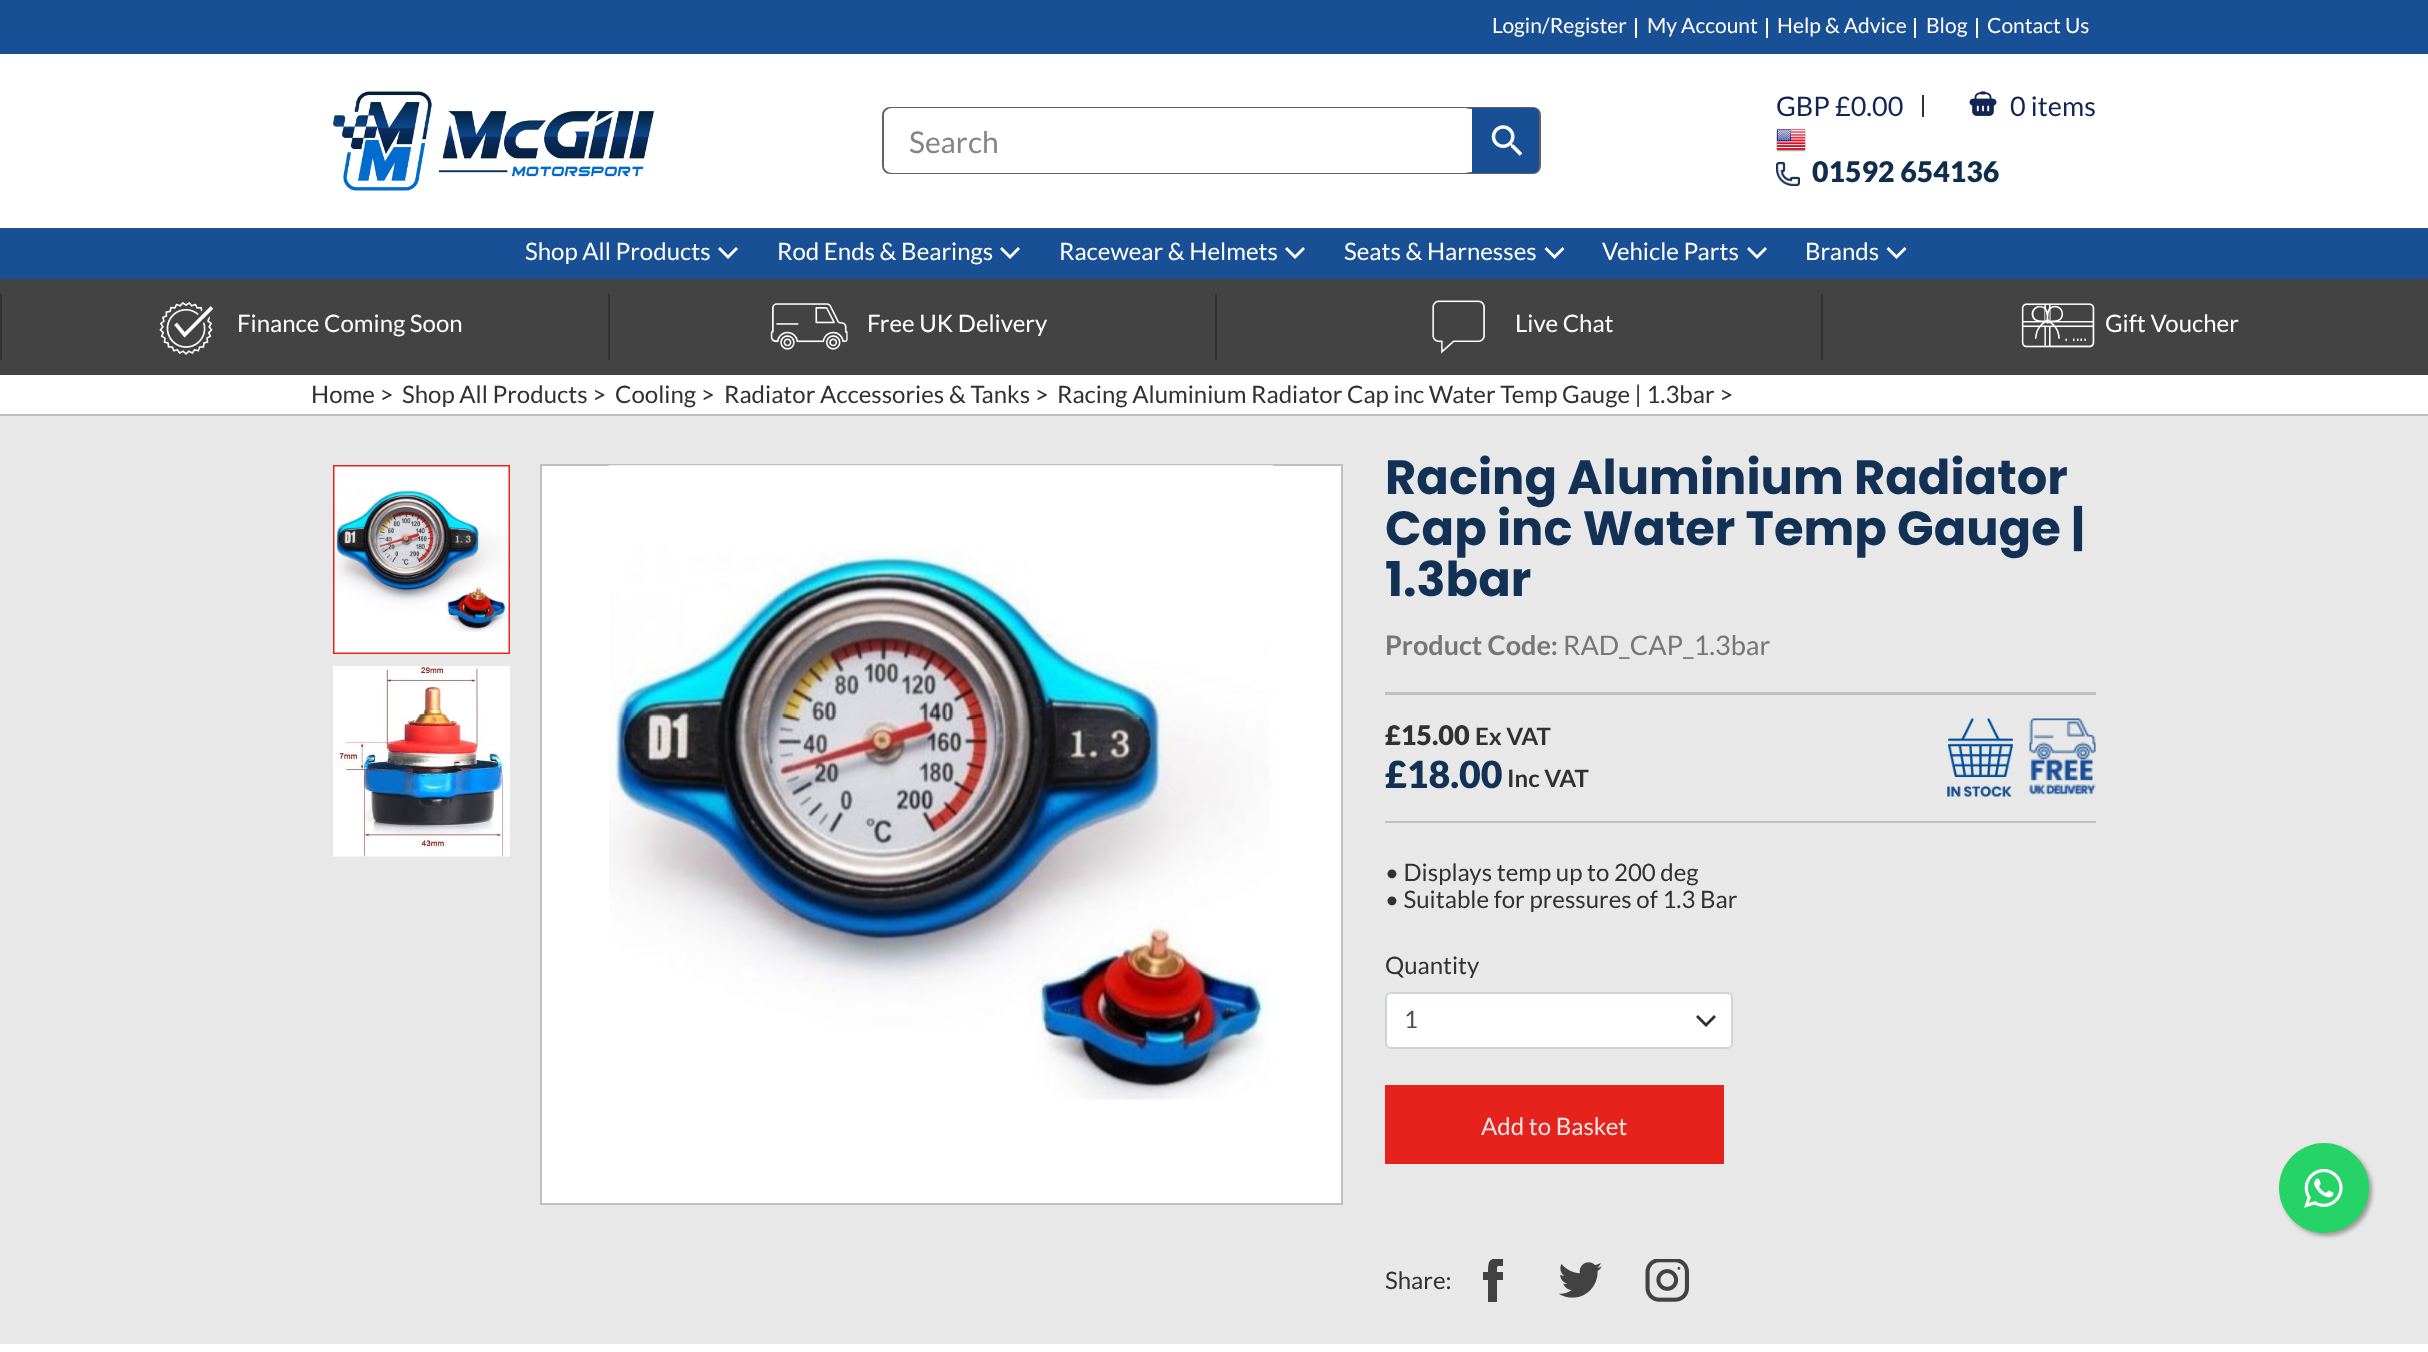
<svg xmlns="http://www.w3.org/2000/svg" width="2428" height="1352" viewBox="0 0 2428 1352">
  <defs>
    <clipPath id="clip1"><path d="M1385 1259h711v43H1385z"/></clipPath>
  </defs>
  <rect width="100%" height="100%" fill="#e8e8e8"/>
  <path d="M0 54h2428v174H0z" fill="#fff"/>
  <path d="M0 0h2428v54H0z" fill="#194f95"/>
  <path d="M1635 18h2v20H1635z" fill="#fff"/>
  <path d="M1766 18h2v20H1766z" fill="#fff"/>
  <path d="M1914 18h2v20H1914z" fill="#fff"/>
  <path d="M1976 18h2v20H1976z" fill="#fff"/>
  <image x="333" y="91" width="321" height="100" href="img/1.png"/>
  <rect x="883" y="108" width="657" height="65" rx="7" fill="none" stroke="#626262" stroke-width="2"/>
  <rect x="884" y="108" width="589" height="65" rx="8" fill="#fff"/>
  <path d="M1472 108H1533C1536.5 108 1539 110.5 1539 114V167C1539 170.5 1536.5 173 1533 173H1472Z" fill="#194f95"/>
  <image x="1491" y="125" width="32" height="31" href="img/2.png"/>
  <path d="M1922 95h2v22H1922z" fill="#313131"/>
  <image x="1969" y="91" width="28" height="25" href="img/3.png"/>
  <image x="1776" y="128" width="30" height="24" href="img/4.png"/>
  <image x="1776" y="162" width="24" height="24" href="img/5.png"/>
  <path d="M0 228h2428v51H0z" fill="#194f95"/>
  <path d="M718 249L728 259L738 249L736 247L728 255L720 247Z" fill="#fff"/>
  <path d="M1000 249L1010 259L1020 249L1018 247L1010 255L1002 247Z" fill="#fff"/>
  <path d="M1285 249L1295 259L1305 249L1303 247L1295 255L1287 247Z" fill="#fff"/>
  <path d="M1544.5 249L1554.5 259L1564.5 249L1562.5 247L1554.5 255L1546.5 247Z" fill="#fff"/>
  <path d="M1747 249L1757 259L1767 249L1765 247L1757 255L1749 247Z" fill="#fff"/>
  <path d="M1886.5 249L1896.5 259L1906.5 249L1904.5 247L1896.5 255L1888.5 247Z" fill="#fff"/>
  <path d="M0 279h2428v96H0z" fill="#434343"/>
  <path d="M0 294h2v66H0z" fill="#313131"/>
  <image x="159" y="302" width="55" height="53" href="img/6.png"/>
  <path d="M608 294h2v66H608z" fill="#313131"/>
  <image x="770" y="303" width="78" height="47" href="img/7.png"/>
  <path d="M1215 294h2v66H1215z" fill="#313131"/>
  <image x="1432" y="300" width="53" height="54" href="img/8.png"/>
  <path d="M1821 294h2v66H1821z" fill="#313131"/>
  <image x="2021" y="303" width="74" height="45" href="img/9.png"/>
  <path d="M0 375h2428v39H0z" fill="#fff"/>
  <path d="M0 414h2428v2H0z" fill="#bfbfbf"/>
  <path d="M334 466h175v187H334z" fill="none" stroke="#e5231c" stroke-width="2"/>
  <image x="334" y="466" width="175" height="187" href="img/10.png"/>
  <image x="333" y="666" width="177" height="191" href="img/11.png"/>
  <path d="M541 465h801v739H541z" fill="#fff" stroke="#bfbfbf" stroke-width="2"/>
  <image x="609" y="465" width="665" height="636" href="img/12.png"/>
  <path d="M1385 692h711v3H1385z" fill="#bfbfbf"/>
  <path d="M1385 821h711v2H1385z" fill="#bfbfbf"/>
  <image x="1947" y="718" width="66" height="79" href="img/13.png"/>
  <image x="2029" y="718" width="67" height="77" href="img/14.png"/>
  <rect x="1386" y="993" width="346" height="55" rx="5" fill="#fff" stroke="#ced4da" stroke-width="2"/>
  <path d="M1696 1017L1706 1027L1716 1017L1714 1015L1706 1023L1698 1015Z" fill="#303030"/>
  <path d="M1385 1085h339v79H1385z" fill="#e5231c"/>
  <g clip-path="url(#clip1)">
    <path d="M1497 1272C1497 1265 1496 1266 1503 1266V1258C1490 1258 1488 1259 1488 1272H1483V1280H1488V1302H1497V1280H1503V1272Z" fill="#424242"/>
  </g>
  <image x="1558" y="1262" width="44" height="36" href="img/15.png"/>
  <image x="1645" y="1259" width="44" height="43" href="img/16.png"/>
  <path d="M0 1344h2428v8H0z" fill="#fff"/>
  <rect x="2282" y="1146" width="90" height="90" rx="45" fill="#999" filter="blur(2px)"/>
  <circle cx="2324" cy="1188" r="45" fill="#25d366"/>
  <image x="2304" y="1169" width="39" height="39" href="img/17.png"/>
  <g font-family="Lato" font-size="21" fill="#fff">
    <text x="1492" y="33">Login/Register</text>
    <text x="1647" y="33">My Account</text>
    <text x="1777" y="33">Help &amp; Advice</text>
    <text x="1926" y="33">Blog</text>
    <text x="1987" y="33">Contact Us</text>
  </g>
  <text x="909" y="153" font-family="Lato" font-size="30" fill="#858585">Search</text>
  <g font-family="Lato" font-size="27" fill="#132553">
    <text x="1776" y="116">GBP £0.00</text>
    <text x="2010" y="116">0 items</text>
  </g>
  <text x="1812" y="182" font-family="Lato" font-size="28.5" font-weight="900" fill="#102d4d">01592 654136</text>
  <g font-family="Lato" font-size="24" fill="#fff">
    <text x="525" y="260">Shop All Products</text>
    <text x="777" y="260">Rod Ends &amp; Bearings</text>
    <text x="1059" y="260">Racewear &amp; Helmets</text>
    <text x="1344" y="260">Seats &amp; Harnesses</text>
    <text x="1602" y="260">Vehicle Parts</text>
    <text x="1805" y="260">Brands</text>
    <text x="237" y="332">Finance Coming Soon</text>
    <text x="867" y="332">Free UK Delivery</text>
    <text x="1515" y="332">Live Chat</text>
    <text x="2105" y="332">Gift Voucher</text>
  </g>
  <g font-family="Lato" font-size="24" fill="#313131">
    <text x="311" y="403">Home &gt;</text>
    <text x="402" y="403">Shop All Products &gt;</text>
    <text x="615" y="403">Cooling &gt;</text>
    <text x="724" y="403">Radiator Accessories &amp; Tanks &gt;</text>
    <text x="1057" y="403">Racing Aluminium Radiator Cap inc Water Temp Gauge | 1.3bar &gt;</text>
  </g>
  <g font-family="Poppins" font-size="48" font-weight="bold" fill="#123154">
    <text x="1385" y="494">Racing Aluminium Radiator</text>
    <text x="1385" y="545">Cap inc Water Temp Gauge |</text>
    <text x="1385" y="596">1.3bar</text>
  </g>
  <text x="1385" y="655" font-family="Lato" font-size="27" font-weight="bold" fill="#767676">Product Code:</text>
  <text x="1563" y="655" font-family="Lato" font-size="27" fill="#767676">RAD_CAP_1.3bar</text>
  <text x="1385" y="745" font-family="Lato" font-size="27" font-weight="900" fill="#313131">£15.00</text>
  <text x="1475" y="745" font-family="Lato" font-size="24" font-weight="bold" fill="#313131">Ex VAT</text>
  <text x="1385" y="788" font-family="Lato" font-size="37.5" font-weight="900" fill="#123154">£18.00</text>
  <text x="1507" y="787" font-family="Lato" font-size="24" font-weight="bold" fill="#313131">Inc VAT</text>
  <g font-family="Lato" font-size="24" fill="#313131">
    <text x="1385" y="881">• Displays temp up to 200 deg</text>
    <text x="1385" y="908">• Suitable for pressures of 1.3 Bar</text>
    <text x="1385" y="974">Quantity</text>
  </g>
  <text x="1404" y="1028" font-family="Lato" font-size="24" fill="#495057">1</text>
  <text x="1481" y="1135" font-family="Lato" font-size="24" fill="#e5e5e5">Add to Basket</text>
  <text x="1385" y="1289" font-family="Lato" font-size="24" fill="#313131">Share:</text>
</svg>
